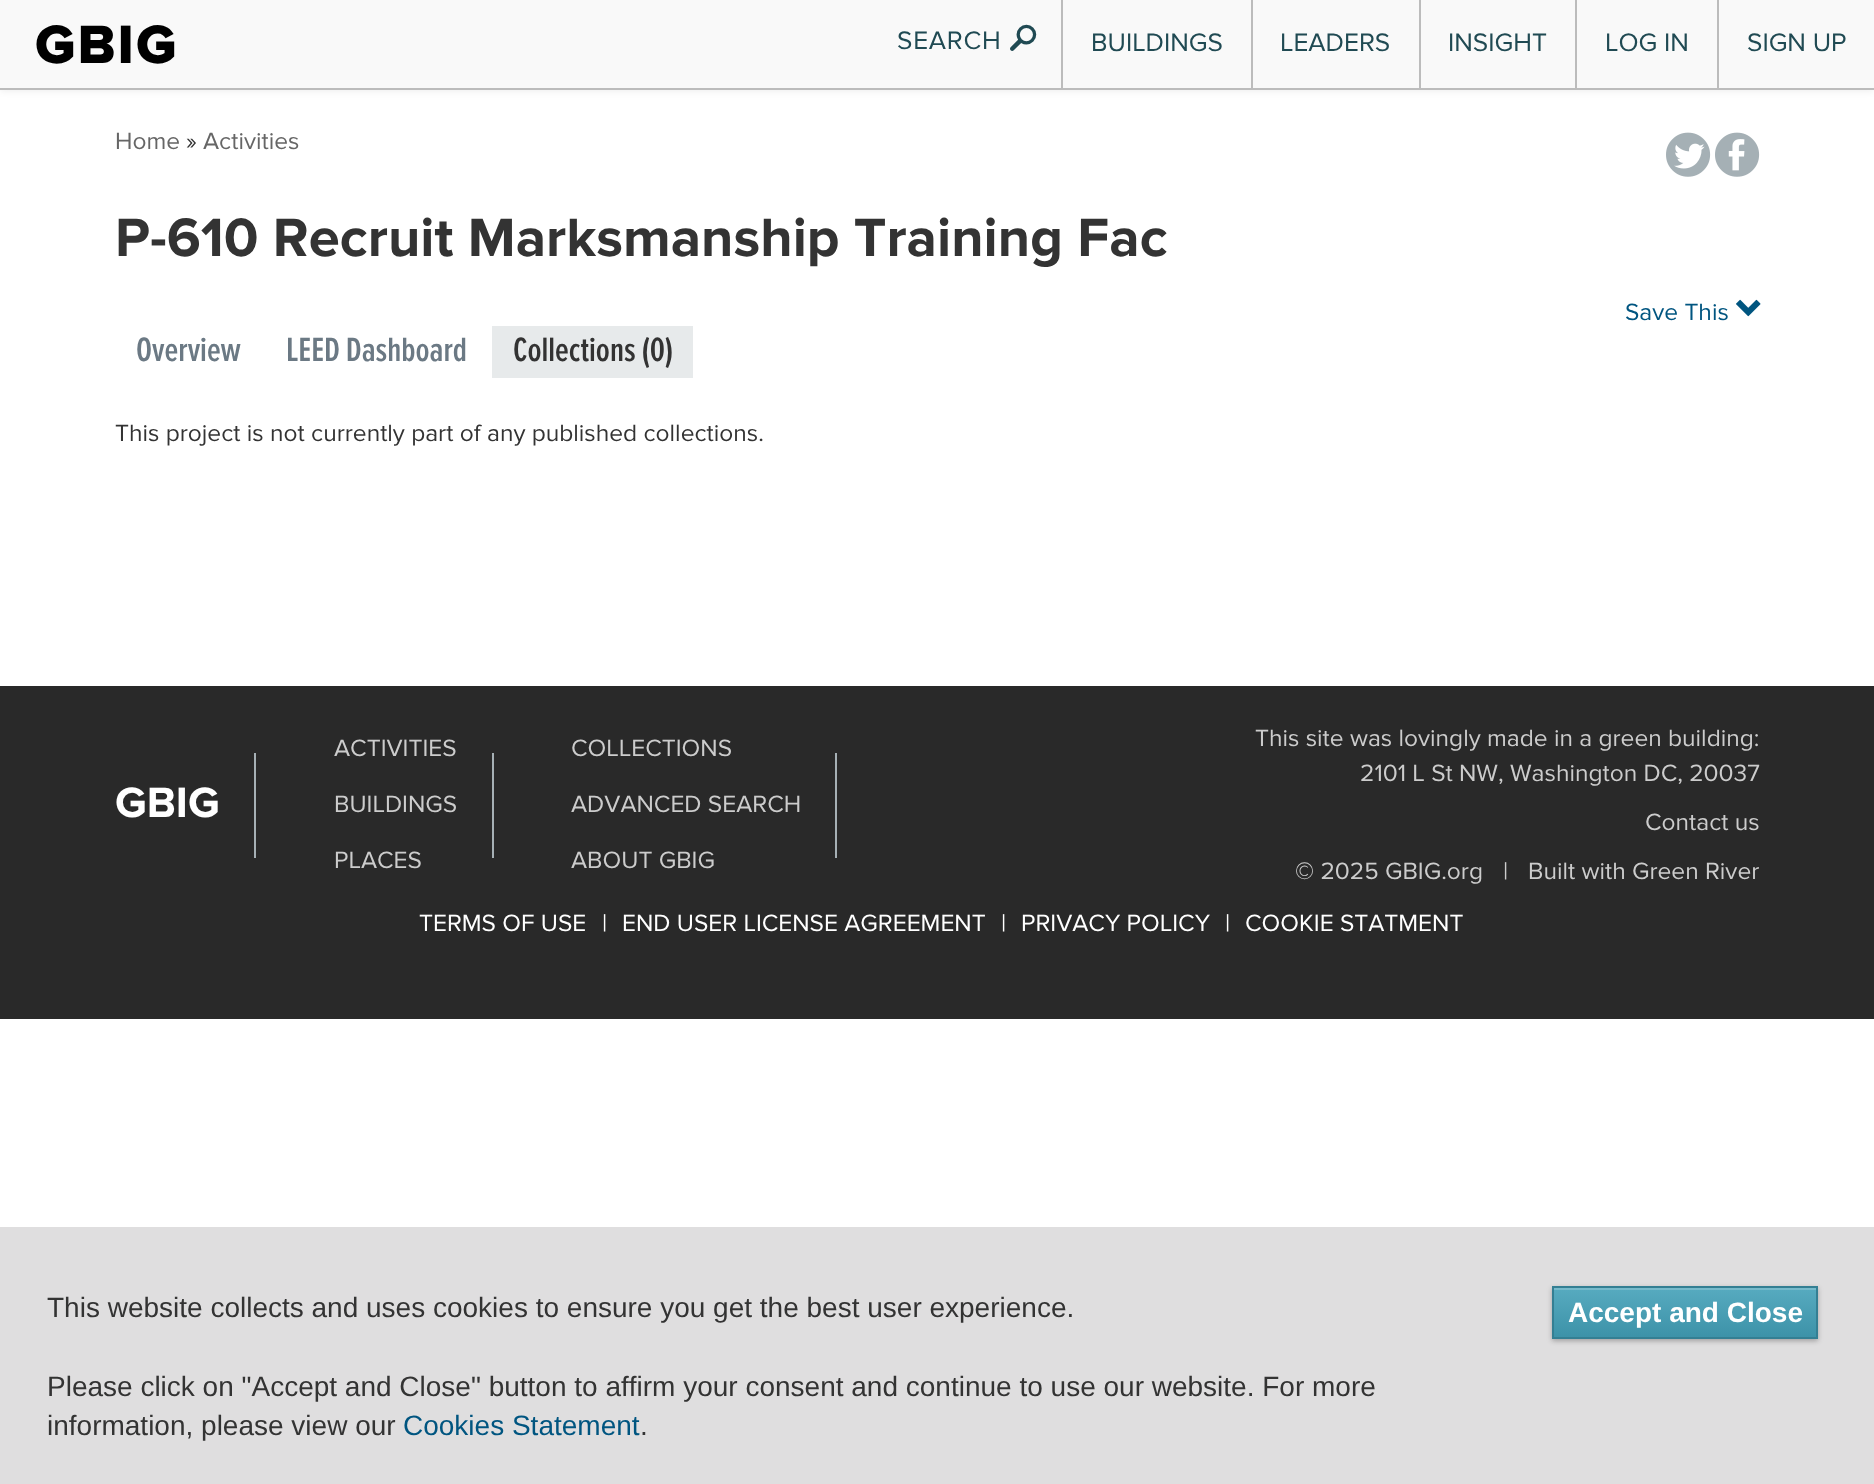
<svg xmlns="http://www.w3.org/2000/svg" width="1874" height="1484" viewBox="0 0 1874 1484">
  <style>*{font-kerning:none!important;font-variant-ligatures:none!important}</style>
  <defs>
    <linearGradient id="g1" gradientUnits="userSpaceOnUse" x1="1554" y1="1288" x2="1554" y2="1337"><stop offset="0" stop-color="#57abc0"/><stop offset="1" stop-color="#3d92a8"/></linearGradient>
  </defs>
  <rect width="100%" height="100%" fill="#fff"/>
  <path d="M0 2h1874v89H0z" fill="#00000012" filter="blur(3.5px)"/>
  <path d="M0 0h1874v88H0z" fill="#f9f9f9"/>
  <path d="M0 88h1874v2H0z" fill="#bcbcbc"/>
  <path d="M1061 0h2v88H1061z" fill="#bcbcbc"/>
  <path d="M1251 0h2v88H1251z" fill="#bcbcbc"/>
  <path d="M1419 0h2v88H1419z" fill="#bcbcbc"/>
  <path d="M1575 0h2v88H1575z" fill="#bcbcbc"/>
  <path d="M1717 0h2v88H1717z" fill="#bcbcbc"/>
  <image x="1666" y="132" width="45" height="45" href="img/1.png"/>
  <image x="1715" y="132" width="45" height="45" href="img/2.png"/>
  <image x="1736" y="299" width="25" height="18" href="img/3.png"/>
  <path d="M492 326h201v52H492z" fill="#e7eaeb"/>
  <path d="M0 686h1874v333H0z" fill="#292929"/>
  <path d="M254 753h2v105H254z" fill="#a6b0b5"/>
  <path d="M492 753h2v105H492z" fill="#a6b0b5"/>
  <path d="M835 753h2v105H835z" fill="#a6b0b5"/>
  <path d="M0 1227h1874v257H0z" fill="#dfdedf"/>
  <path d="M1552 1288h266v53H1552z" fill="#00000047" filter="blur(2.5px)"/>
  <path d="M1554 1290h262v47H1554z" fill="url(#g1)"/>
  <path d="M1554 1288h263v2H1554z" fill="#77bacb"/>
  <path d="M1553 1287h264v51H1553z" fill="none" stroke="#347f93" stroke-width="2"/>
  <text x="35" y="63" font-family="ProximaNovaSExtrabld" font-size="56" font-weight="800" letter-spacing="2" fill="#000">GBIG</text>
  <text x="897" y="49" font-family="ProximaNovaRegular" font-size="26.25" letter-spacing="0.75" fill="#204a53">SEARCH</text>
  <text x="1010" y="51" font-family="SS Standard" font-size="26.25" letter-spacing="0.75" fill="#204a53">🔎</text>
  <g font-family="ProximaNovaRegular" font-size="26.25" fill="#204a53">
    <text x="1091" y="51">BUILDINGS</text>
    <text x="1280" y="51">LEADERS</text>
    <text x="1448" y="51">INSIGHT</text>
    <text x="1605" y="51">LOG IN</text>
    <text x="1747" y="51">SIGN UP</text>
  </g>
  <text x="115" y="149" font-family="ProximaNovaRegular" font-size="24.5" fill="#666">Home</text>
  <text x="186" y="149" font-family="ProximaNovaRegular" font-size="24.5" fill="#333">»</text>
  <text x="203" y="149" font-family="ProximaNovaRegular" font-size="24.5" fill="#666">Activities</text>
  <text x="115" y="256" font-family="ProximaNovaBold" font-size="56" font-weight="bold" fill="#333">P-610 Recruit Marksmanship Training Fac</text>
  <text x="1625" y="320" font-family="ProximaNovaRegular" font-size="24.5" fill="#005580">Save This</text>
  <g font-family="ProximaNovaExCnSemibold" font-size="35" font-weight="600" fill="#6b7984">
    <text x="136" y="361">Overview</text>
    <text x="286" y="361">LEED Dashboard</text>
  </g>
  <text x="513" y="361" font-family="ProximaNovaExCnSemibold" font-size="35" font-weight="600" fill="#333">Collections (0)</text>
  <text x="115" y="441" font-family="ProximaNovaRegular" font-size="24.5" fill="#333">This project is not currently part of any published collections.</text>
  <text x="115" y="817" font-family="ProximaNovaBold" font-size="44" font-weight="bold" fill="#fff">GBIG</text>
  <g font-family="ProximaNovaRegular" font-size="24.5" fill="#ccc">
    <text x="334" y="756">ACTIVITIES</text>
    <text x="334" y="812">BUILDINGS</text>
    <text x="334" y="868">PLACES</text>
    <text x="571" y="756">COLLECTIONS</text>
    <text x="571" y="812">ADVANCED SEARCH</text>
    <text x="571" y="868">ABOUT GBIG</text>
    <text x="1255" y="746">This site was lovingly made in a green building:</text>
    <text x="1360" y="781">2101 L St NW, Washington DC, 20037</text>
    <text x="1645" y="830">Contact us</text>
    <text x="1295" y="879">© 2025 GBIG.org</text>
    <text x="1503" y="879">|</text>
    <text x="1528" y="879">Built with Green River</text>
  </g>
  <g font-family="ProximaNovaRegular" font-size="24.5" fill="#fff">
    <text x="419" y="931">TERMS OF USE</text>
    <text x="602" y="931">|</text>
    <text x="622" y="931">END USER LICENSE AGREEMENT</text>
    <text x="1001" y="931">|</text>
    <text x="1021" y="931">PRIVACY POLICY</text>
    <text x="1225" y="931">|</text>
    <text x="1245" y="931">COOKIE STATMENT</text>
  </g>
  <g font-family="Liberation Sans" font-size="28" fill="#333">
    <text x="47" y="1317">This website collects and uses cookies to ensure you get the best user experience.</text>
    <text x="47" y="1396">Please click on "Accept and Close" button to affirm your consent and continue to use our website. For more</text>
    <text x="47" y="1435">information, please view our</text>
  </g>
  <text x="403" y="1435" font-family="Liberation Sans" font-size="28" fill="#005580">Cookies Statement</text>
  <text x="640" y="1435" font-family="Liberation Sans" font-size="28" fill="#333">.</text>
  <text x="1568" y="1322" font-family="Liberation Sans" font-size="28" font-weight="bold" fill="#fff">Accept and Close</text>
</svg>
